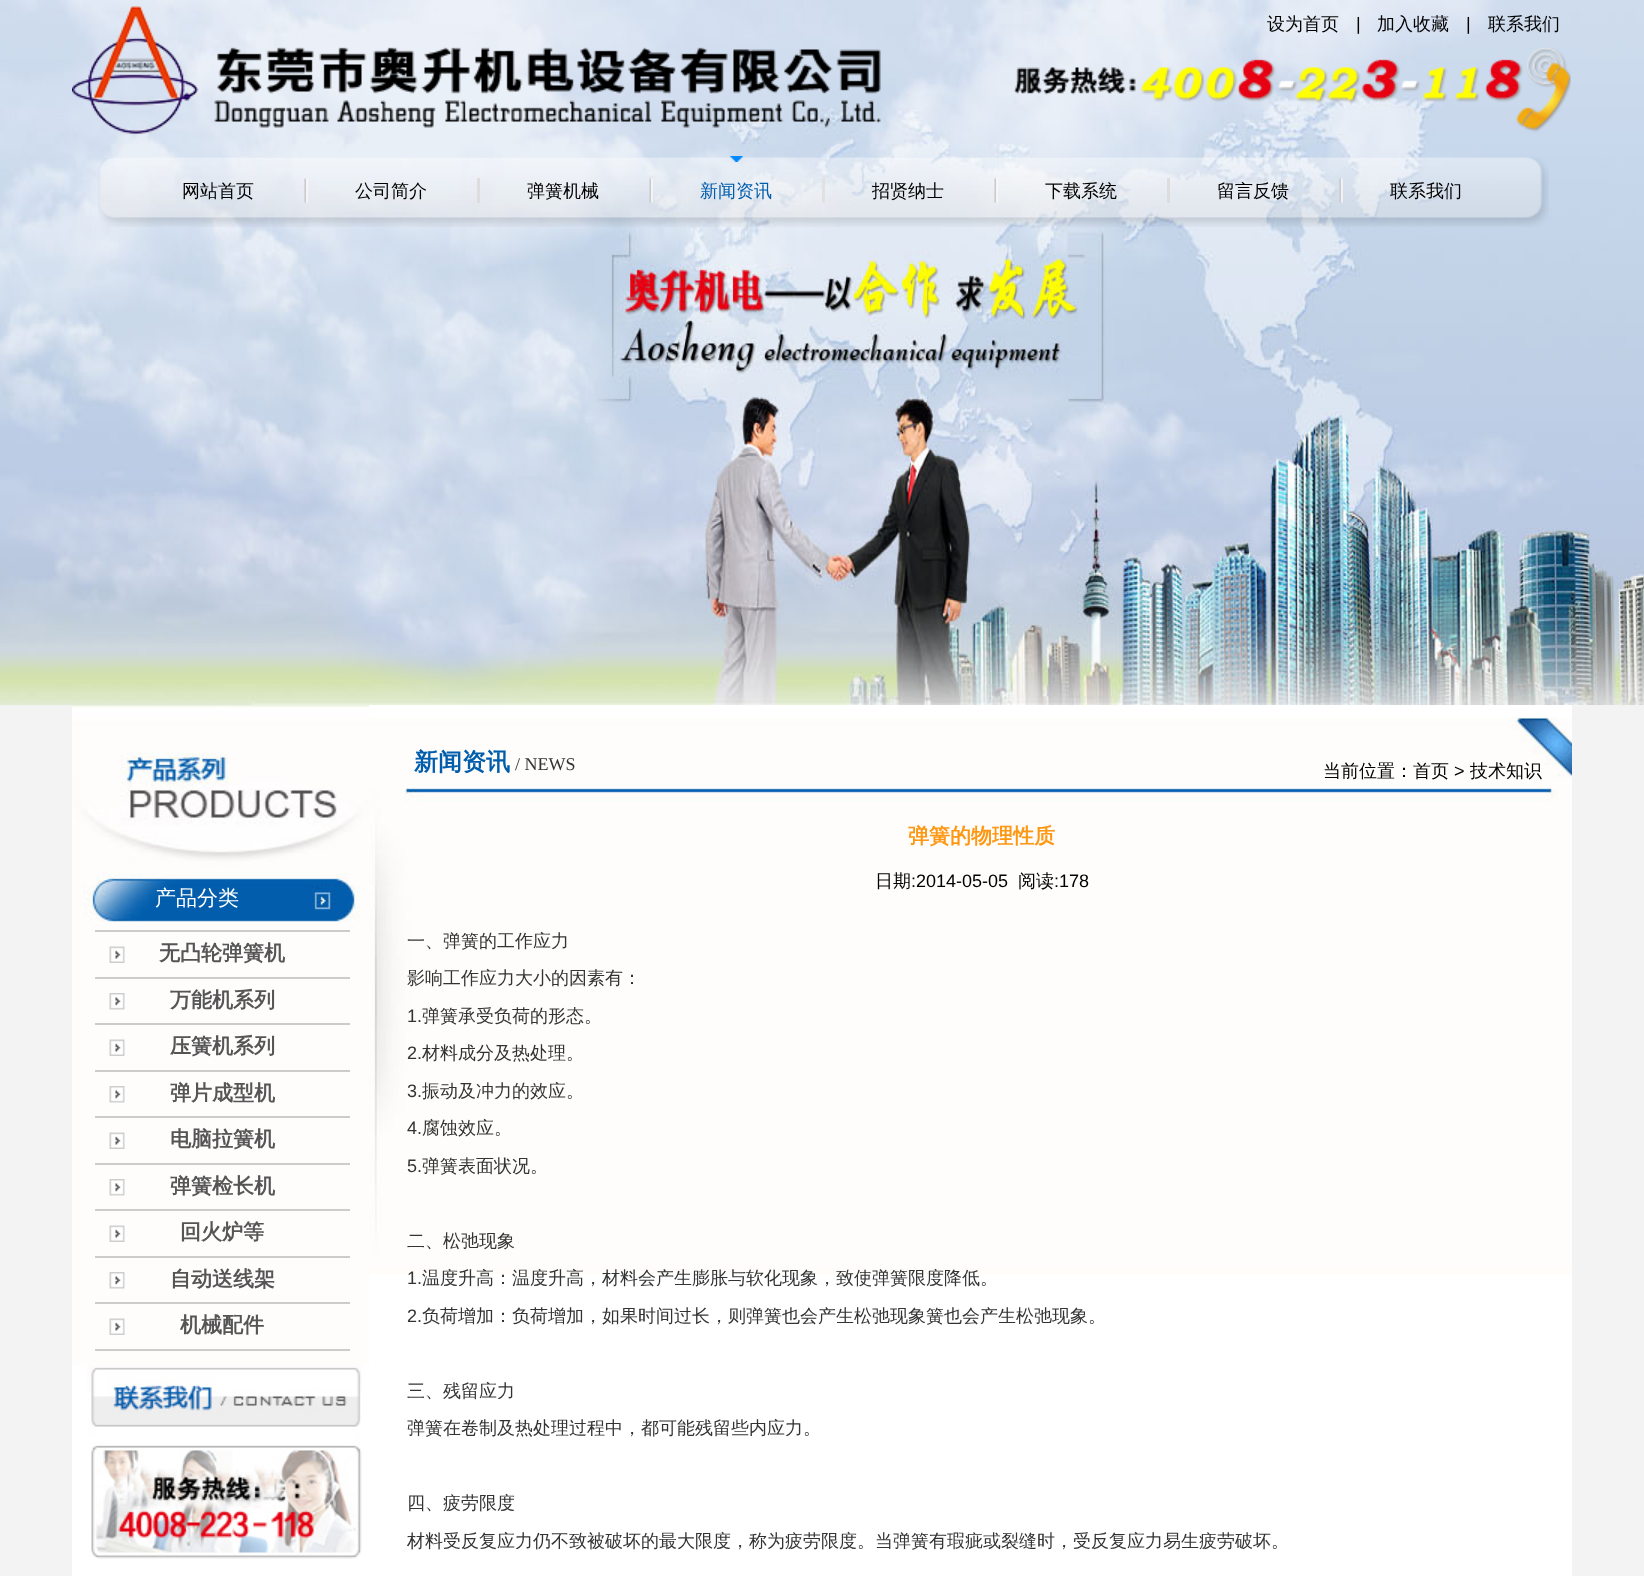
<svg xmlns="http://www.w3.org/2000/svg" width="1644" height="1576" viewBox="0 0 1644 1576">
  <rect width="100%" height="100%" fill="#f3f3f3"/>
  <image x="0" y="0" width="1644" height="705" href="img/1.png"/>
  <image x="72" y="6" width="1499" height="128" href="img/2.png"/>
  <image x="98" y="157" width="1451" height="70" href="img/3.png"/>
  <image x="304" y="178" width="4" height="25" href="img/4.png"/>
  <path d="M477 178h3v25H477z" fill="#ddd"/>
  <image x="649" y="178" width="4" height="25" href="img/5.png"/>
  <image x="730" y="156" width="13" height="6" href="img/6.png"/>
  <path d="M822 178h3v25H822z" fill="#e1e1e1"/>
  <image x="994" y="178" width="4" height="25" href="img/7.png"/>
  <path d="M1167 178h3v25H1167z" fill="#ddd"/>
  <image x="1339" y="178" width="4" height="25" href="img/8.png"/>
  <path d="M72 705h1500v871H72z" fill="#fff"/>
  <path d="M72 922h297v443H72z" fill="#fffcfc"/>
  <image x="72" y="705" width="297" height="217" href="img/9.png"/>
  <path d="M95 930h255v2H95z" fill="#ccc"/>
  <image x="109" y="946" width="16" height="17" href="img/10.png"/>
  <path d="M95 977h255v2H95z" fill="#ccc"/>
  <image x="109" y="993" width="16" height="17" href="img/11.png"/>
  <path d="M95 1023h255v2H95z" fill="#ccc"/>
  <image x="109" y="1039" width="16" height="17" href="img/10.png"/>
  <path d="M95 1070h255v2H95z" fill="#ccc"/>
  <image x="109" y="1086" width="16" height="17" href="img/11.png"/>
  <path d="M95 1116h255v2H95z" fill="#ccc"/>
  <image x="109" y="1132" width="16" height="17" href="img/10.png"/>
  <path d="M95 1163h255v2H95z" fill="#ccc"/>
  <image x="109" y="1179" width="16" height="17" href="img/11.png"/>
  <path d="M95 1209h255v2H95z" fill="#ccc"/>
  <image x="109" y="1225" width="16" height="17" href="img/10.png"/>
  <path d="M95 1256h255v2H95z" fill="#ccc"/>
  <image x="109" y="1272" width="16" height="17" href="img/11.png"/>
  <path d="M95 1302h255v2H95z" fill="#ccc"/>
  <image x="109" y="1318" width="16" height="17" href="img/10.png"/>
  <path d="M95 1349h255v2H95z" fill="#ccc"/>
  <image x="87" y="1365" width="275" height="194" href="img/12.png"/>
  <image x="369" y="717" width="1203" height="557" href="img/13.png"/>
  <text x="1267" y="30" font-family="WenQuanYi Zen Hei" font-size="18" font-weight="500" fill="#000">设为首页</text>
  <text x="1356" y="30" font-family="Liberation Sans" font-size="18" fill="#000">|</text>
  <text x="1377" y="30" font-family="WenQuanYi Zen Hei" font-size="18" font-weight="500" fill="#000">加入收藏</text>
  <text x="1466" y="30" font-family="Liberation Sans" font-size="18" fill="#000">|</text>
  <g font-family="WenQuanYi Zen Hei" font-size="18" font-weight="500" fill="#000">
    <text x="1488" y="30">联系我们</text>
    <text x="182" y="197">网站首页</text>
    <text x="355" y="197">公司简介</text>
    <text x="527" y="197">弹簧机械</text>
  </g>
  <text x="700" y="197" font-family="WenQuanYi Zen Hei" font-size="18" font-weight="500" fill="#005dac">新闻资讯</text>
  <g font-family="WenQuanYi Zen Hei" font-size="18" font-weight="500" fill="#000">
    <text x="872" y="197">招贤纳士</text>
    <text x="1045" y="197">下载系统</text>
    <text x="1217" y="197">留言反馈</text>
    <text x="1390" y="197">联系我们</text>
  </g>
  <text x="155" y="905" font-family="WenQuanYi Zen Hei" font-size="21" font-weight="500" fill="#fff">产品分类</text>
  <g font-family="WenQuanYi Zen Hei" font-size="21" font-weight="bold" fill="#555">
    <text x="159" y="960">无凸轮弹簧机</text>
    <text x="170" y="1007">万能机系列</text>
    <text x="170" y="1053">压簧机系列</text>
    <text x="170" y="1100">弹片成型机</text>
    <text x="170" y="1146">电脑拉簧机</text>
    <text x="170" y="1193">弹簧检长机</text>
    <text x="180" y="1239">回火炉等</text>
    <text x="170" y="1286">自动送线架</text>
    <text x="180" y="1332">机械配件</text>
  </g>
  <text x="414" y="770" font-family="WenQuanYi Zen Hei" font-size="24" font-weight="bold" fill="#005dac">新闻资讯</text>
  <text x="515" y="770" font-family="Liberation Serif" font-size="18" fill="#333">/ NEWS</text>
  <text x="1323" y="777" font-family="WenQuanYi Zen Hei" font-size="18" font-weight="500" fill="#000">当前位置：首页</text>
  <text x="1454" y="777" font-family="Liberation Sans" font-size="18" fill="#000">&gt;</text>
  <text x="1470" y="777" font-family="WenQuanYi Zen Hei" font-size="18" font-weight="500" fill="#000">技术知识</text>
  <text x="908" y="843" font-family="WenQuanYi Zen Hei" font-size="21" font-weight="bold" fill="#fe9712">弹簧的物理性质</text>
  <text x="875" y="887" font-family="WenQuanYi Zen Hei" font-size="18" font-weight="500" fill="#000">日期</text>
  <text x="911" y="887" font-family="Liberation Sans" font-size="18" fill="#000">:2014-05-05</text>
  <text x="1018" y="887" font-family="WenQuanYi Zen Hei" font-size="18" font-weight="500" fill="#000">阅读</text>
  <text x="1054" y="887" font-family="Liberation Sans" font-size="18" fill="#000">:178</text>
  <g font-family="WenQuanYi Zen Hei" font-size="18" font-weight="500" fill="#333">
    <text x="407" y="947">一、弹簧的工作应力</text>
    <text x="407" y="984">影响工作应力大小的因素有：</text>
  </g>
  <text x="407" y="1022" font-family="Liberation Sans" font-size="18" fill="#333">1.</text>
  <text x="422" y="1022" font-family="WenQuanYi Zen Hei" font-size="18" font-weight="500" fill="#333">弹簧承受负荷的形态。</text>
  <text x="407" y="1059" font-family="Liberation Sans" font-size="18" fill="#333">2.</text>
  <text x="422" y="1059" font-family="WenQuanYi Zen Hei" font-size="18" font-weight="500" fill="#333">材料成分及热处理。</text>
  <text x="407" y="1097" font-family="Liberation Sans" font-size="18" fill="#333">3.</text>
  <text x="422" y="1097" font-family="WenQuanYi Zen Hei" font-size="18" font-weight="500" fill="#333">振动及冲力的效应。</text>
  <text x="407" y="1134" font-family="Liberation Sans" font-size="18" fill="#333">4.</text>
  <text x="422" y="1134" font-family="WenQuanYi Zen Hei" font-size="18" font-weight="500" fill="#333">腐蚀效应。</text>
  <text x="407" y="1172" font-family="Liberation Sans" font-size="18" fill="#333">5.</text>
  <g font-family="WenQuanYi Zen Hei" font-size="18" font-weight="500" fill="#333">
    <text x="422" y="1172">弹簧表面状况。</text>
    <text x="407" y="1247">二、松弛现象</text>
  </g>
  <text x="407" y="1284" font-family="Liberation Sans" font-size="18" fill="#333">1.</text>
  <text x="422" y="1284" font-family="WenQuanYi Zen Hei" font-size="18" font-weight="500" fill="#333">温度升高：温度升高，材料会产生膨胀与软化现象，致使弹簧限度降低。</text>
  <text x="407" y="1322" font-family="Liberation Sans" font-size="18" fill="#333">2.</text>
  <g font-family="WenQuanYi Zen Hei" font-size="18" font-weight="500" fill="#333">
    <text x="422" y="1322">负荷增加：负荷增加，如果时间过长，则弹簧也会产生松弛现象簧也会产生松弛现象。</text>
    <text x="407" y="1397">三、残留应力</text>
    <text x="407" y="1434">弹簧在卷制及热处理过程中，都可能残留些内应力。</text>
    <text x="407" y="1509">四、疲劳限度</text>
    <text x="407" y="1547">材料受反复应力仍不致被破坏的最大限度，称为疲劳限度。当弹簧有瑕疵或裂缝时，受反复应力易生疲劳破坏。</text>
  </g>
</svg>
